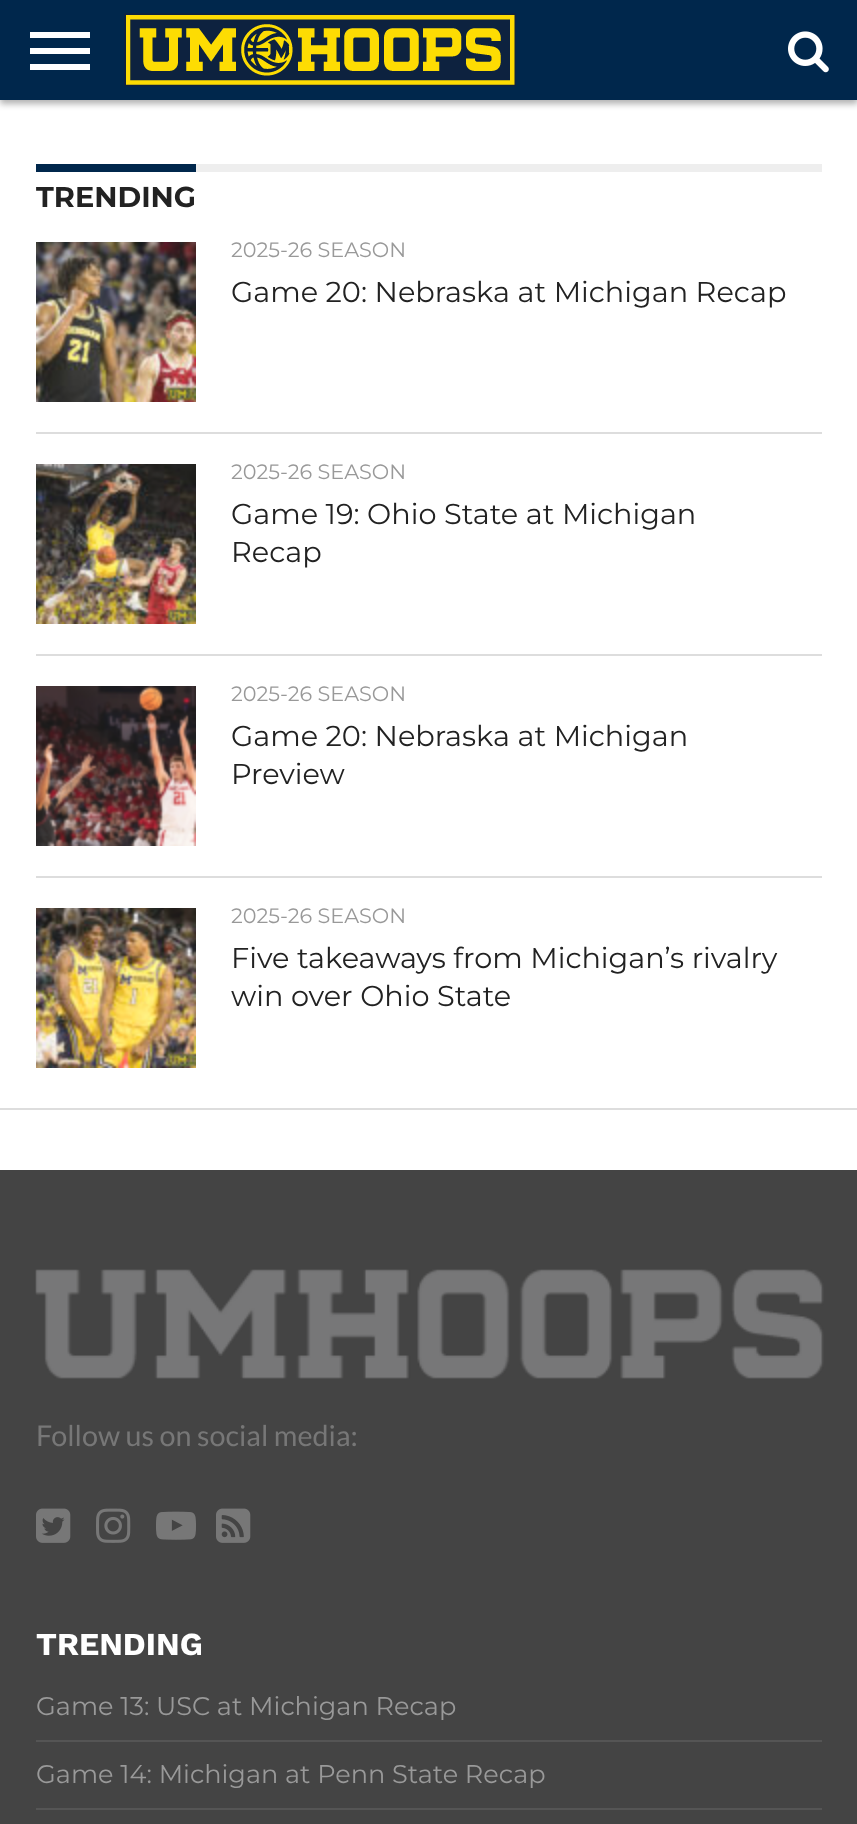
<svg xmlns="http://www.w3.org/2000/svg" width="857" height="1824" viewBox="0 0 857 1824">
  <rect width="100%" height="100%" fill="#fff"/>
  <path d="M0 4h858v100H0z" fill="#0000004d" filter="blur(3px)"/>
  <path d="M0 0h857v100H0z" fill="#00274c"/>
  <path d="M30 32h60v6H30z" fill="#fff"/>
  <path d="M30 48h60v6H30z" fill="#fff"/>
  <path d="M30 64h60v6H30z" fill="#fff"/>
  <image x="124" y="13" width="392" height="74" href="img/1.png"/>
  <image x="788" y="31" width="41" height="42" href="img/2.png"/>
  <path d="M0 1108h857v2H0z" fill="#ddd"/>
  <path d="M196 164h626v8H196z" fill="#eee"/>
  <path d="M36 164h160v8H36z" fill="#00274c"/>
  <image x="36" y="242" width="160" height="160" href="img/3.png"/>
  <path d="M36 432h786v2H36z" fill="#ddd"/>
  <image x="36" y="464" width="160" height="160" href="img/4.png"/>
  <path d="M36 654h786v2H36z" fill="#ddd"/>
  <image x="36" y="686" width="160" height="160" href="img/5.png"/>
  <path d="M36 876h786v2H36z" fill="#ddd"/>
  <image x="36" y="908" width="160" height="160" href="img/6.png"/>
  <path d="M0 1170h857v654H0z" fill="#444"/>
  <image x="35" y="1269" width="789" height="110" href="img/7.png"/>
  <image x="36" y="1508" width="35" height="35" href="img/8.png"/>
  <image x="96" y="1508" width="35" height="35" href="img/9.png"/>
  <image x="156" y="1511" width="40" height="29" href="img/10.png"/>
  <image x="216" y="1508" width="35" height="35" href="img/11.png"/>
  <path d="M36 1740h786v2H36z" fill="#555"/>
  <path d="M36 1808h786v2H36z" fill="#555"/>
  <text x="36" y="207" font-family="Montserrat" font-size="28.75" font-weight="bold" fill="#222">TRENDING</text>
  <text x="231" y="257" font-family="Montserrat" font-size="20.75" fill="#999">2025-26 SEASON</text>
  <text x="231" y="302" font-family="Montserrat" font-size="28.75" fill="#222">Game 20: Nebraska at Michigan Recap</text>
  <text x="231" y="479" font-family="Montserrat" font-size="20.75" fill="#999">2025-26 SEASON</text>
  <g font-family="Montserrat" font-size="28.75" fill="#222">
    <text x="231" y="524">Game 19: Ohio State at Michigan</text>
    <text x="231" y="562">Recap</text>
  </g>
  <text x="231" y="701" font-family="Montserrat" font-size="20.75" fill="#999">2025-26 SEASON</text>
  <g font-family="Montserrat" font-size="28.75" fill="#222">
    <text x="231" y="746">Game 20: Nebraska at Michigan</text>
    <text x="231" y="784">Preview</text>
  </g>
  <text x="231" y="923" font-family="Montserrat" font-size="20.75" fill="#999">2025-26 SEASON</text>
  <g font-family="Montserrat" font-size="28.75" fill="#222">
    <text x="231" y="968">Five takeaways from Michigan’s rivalry</text>
    <text x="231" y="1006">win over Ohio State</text>
  </g>
  <text x="36" y="1446" font-family="Lato" font-size="28.75" fill="#777">Follow us on social media:</text>
  <text x="36" y="1655" font-family="Work Sans" font-size="32" font-weight="bold" fill="#fff">TRENDING</text>
  <g font-family="Montserrat" font-size="25.6" fill="#999">
    <text x="36" y="1715">Game 13: USC at Michigan Recap</text>
    <text x="36" y="1783">Game 14: Michigan at Penn State Recap</text>
  </g>
</svg>
